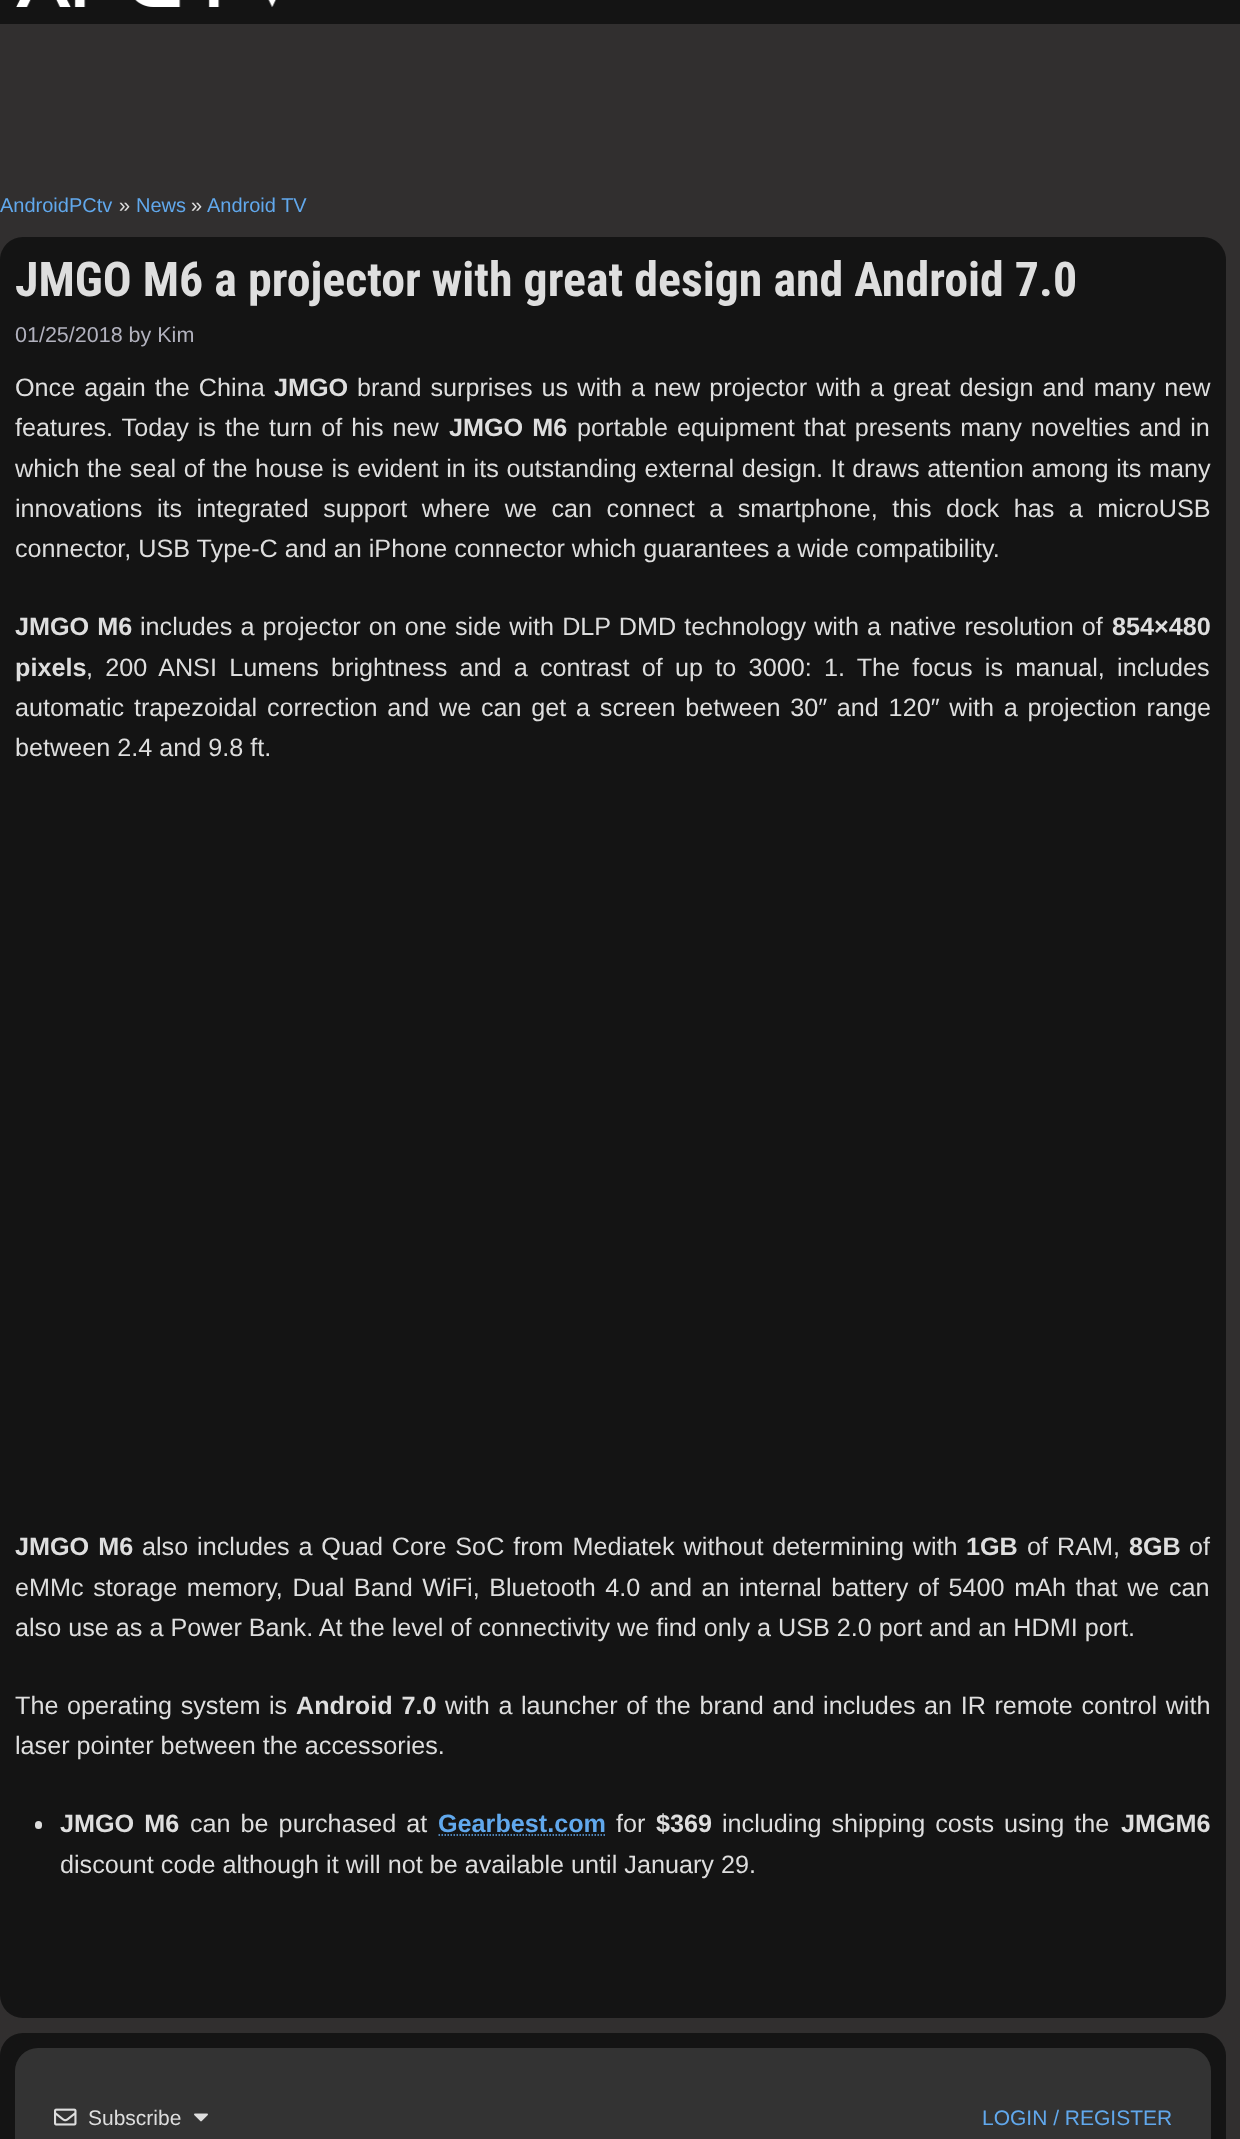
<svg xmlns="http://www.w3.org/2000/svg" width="1240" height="2139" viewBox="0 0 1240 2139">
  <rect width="100%" height="100%" fill="#312f2f"/>
  <path d="M0 0h1240v24H0z" fill="#141414"/>
  <image x="16" y="0" width="261" height="7" href="img/1.png"/>
  <rect y="237" width="1226" height="1781" rx="23" fill="#141414"/>
  <rect x="35" y="1821" width="7" height="8" rx="3.5" fill="#dedede"/>
  <path d="M438.5 1835H606" fill="none" stroke="#61a8ec" stroke-width="1.5" stroke-dasharray="1.5 1.5"/>
  <rect y="2033" width="1226" height="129" rx="23" fill="#141414"/>
  <rect x="15" y="2048" width="1196" height="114" rx="23" fill="#333"/>
  <image x="54" y="2108" width="23" height="18" href="img/2.png"/>
  <image x="194" y="2113" width="14" height="9" href="img/3.png"/>
  <text x="0" y="212" font-family="Liberation Sans" font-size="20" fill="#61a8ec">AndroidPCtv</text>
  <text x="119" y="212" font-family="Liberation Sans" font-size="20" fill="#dedede">»</text>
  <text x="136" y="212" font-family="Liberation Sans" font-size="20" fill="#61a8ec">News</text>
  <text x="191" y="212" font-family="Liberation Sans" font-size="20" fill="#dedede">»</text>
  <text x="207" y="212" font-family="Liberation Sans" font-size="20" fill="#61a8ec">Android TV</text>
  <text x="15" y="296" font-family="Roboto Condensed" font-size="47.9" font-weight="bold" fill="#dedede">JMGO M6 a projector with great design and Android 7.0</text>
  <text x="15" y="342" font-family="Liberation Sans" font-size="21.5" fill="#b2b2be">01/25/2018 by Kim</text>
  <text x="15" y="396" word-spacing="2" font-family="Liberation Sans" font-size="25.2" fill="#dedede">Once again the China</text>
  <text x="274" y="396" font-family="Liberation Sans" font-size="25.2" font-weight="bold" fill="#dedede">JMGO</text>
  <g font-family="Liberation Sans" font-size="25.2" fill="#dedede">
    <text x="357" y="396" word-spacing="2">brand surprises us with a new projector with a great design and many new</text>
    <text x="15" y="436" word-spacing="2">features. Today is the turn of his new</text>
  </g>
  <text x="449" y="436" word-spacing="2" font-family="Liberation Sans" font-size="25.2" font-weight="bold" fill="#dedede">JMGO M6</text>
  <g font-family="Liberation Sans" font-size="25.2" fill="#dedede">
    <text x="577" y="436" word-spacing="2">portable equipment that presents many novelties and in</text>
    <text x="15" y="477" word-spacing="0.7">which the seal of the house is evident in its outstanding external design. It draws attention among its many</text>
    <text x="15" y="517" word-spacing="7.5">innovations its integrated support where we can connect a smartphone, this dock has a microUSB</text>
    <text x="15" y="557">connector, USB Type-C and an iPhone connector which guarantees a wide compatibility.</text>
  </g>
  <text x="15" y="635" word-spacing="1" font-family="Liberation Sans" font-size="25.2" font-weight="bold" fill="#dedede">JMGO M6</text>
  <text x="140" y="635" word-spacing="1.1" font-family="Liberation Sans" font-size="25.2" fill="#dedede">includes a projector on one side with DLP DMD technology with a native resolution of</text>
  <g font-family="Liberation Sans" font-size="25.2" font-weight="bold" fill="#dedede">
    <text x="1112" y="635">854×480</text>
    <text x="15" y="676">pixels</text>
  </g>
  <g font-family="Liberation Sans" font-size="25.2" fill="#dedede">
    <text x="86" y="676" word-spacing="5.25">, 200 ANSI Lumens brightness and a contrast of up to 3000: 1. The focus is manual, includes</text>
    <text x="15" y="716" word-spacing="2.75">automatic trapezoidal correction and we can get a screen between 30″ and 120″ with a projection range</text>
    <text x="15" y="756">between 2.4 and 9.8 ft.</text>
  </g>
  <text x="15" y="1555" word-spacing="2" font-family="Liberation Sans" font-size="25.2" font-weight="bold" fill="#dedede">JMGO M6</text>
  <text x="142" y="1555" word-spacing="1.9" font-family="Liberation Sans" font-size="25.2" fill="#dedede">also includes a Quad Core SoC from Mediatek without determining with</text>
  <text x="966" y="1555" font-family="Liberation Sans" font-size="25.2" font-weight="bold" fill="#dedede">1GB</text>
  <text x="1027" y="1555" word-spacing="2" font-family="Liberation Sans" font-size="25.2" fill="#dedede">of RAM,</text>
  <text x="1129" y="1555" font-family="Liberation Sans" font-size="25.2" font-weight="bold" fill="#dedede">8GB</text>
  <g font-family="Liberation Sans" font-size="25.2" fill="#dedede">
    <text x="1189" y="1555">of</text>
    <text x="15" y="1596" word-spacing="2.6">eMMc storage memory, Dual Band WiFi, Bluetooth 4.0 and an internal battery of 5400 mAh that we can</text>
    <text x="15" y="1636">also use as a Power Bank. At the level of connectivity we find only a USB 2.0 port and an HDMI port.</text>
    <text x="15" y="1714" word-spacing="1.6">The operating system is</text>
  </g>
  <text x="296" y="1714" word-spacing="2" font-family="Liberation Sans" font-size="25.2" font-weight="bold" fill="#dedede">Android 7.0</text>
  <g font-family="Liberation Sans" font-size="25.2" fill="#dedede">
    <text x="445" y="1714" word-spacing="1.6">with a launcher of the brand and includes an IR remote control with</text>
    <text x="15" y="1754">laser pointer between the accessories.</text>
  </g>
  <text x="60" y="1832" word-spacing="3" font-family="Liberation Sans" font-size="25.2" font-weight="bold" fill="#dedede">JMGO M6</text>
  <text x="190" y="1832" word-spacing="3" font-family="Liberation Sans" font-size="25.2" fill="#dedede">can be purchased at</text>
  <text x="438" y="1832" font-family="Liberation Sans" font-size="25.2" font-weight="bold" fill="#61a8ec">Gearbest.com</text>
  <text x="616" y="1832" font-family="Liberation Sans" font-size="25.2" fill="#dedede">for</text>
  <text x="656" y="1832" font-family="Liberation Sans" font-size="25.2" font-weight="bold" fill="#dedede">$369</text>
  <text x="722" y="1832" word-spacing="3" font-family="Liberation Sans" font-size="25.2" fill="#dedede">including shipping costs using the</text>
  <text x="1121" y="1832" font-family="Liberation Sans" font-size="25.2" font-weight="bold" fill="#dedede">JMGM6</text>
  <text x="60" y="1873" font-family="Liberation Sans" font-size="25.2" fill="#dedede">discount code although it will not be available until January 29.</text>
  <text x="88" y="2125" font-family="Liberation Sans" font-size="21" fill="#dedede">Subscribe</text>
  <text x="982" y="2125" font-family="Liberation Sans" font-size="21" fill="#61a8ec">LOGIN / REGISTER</text>
</svg>
